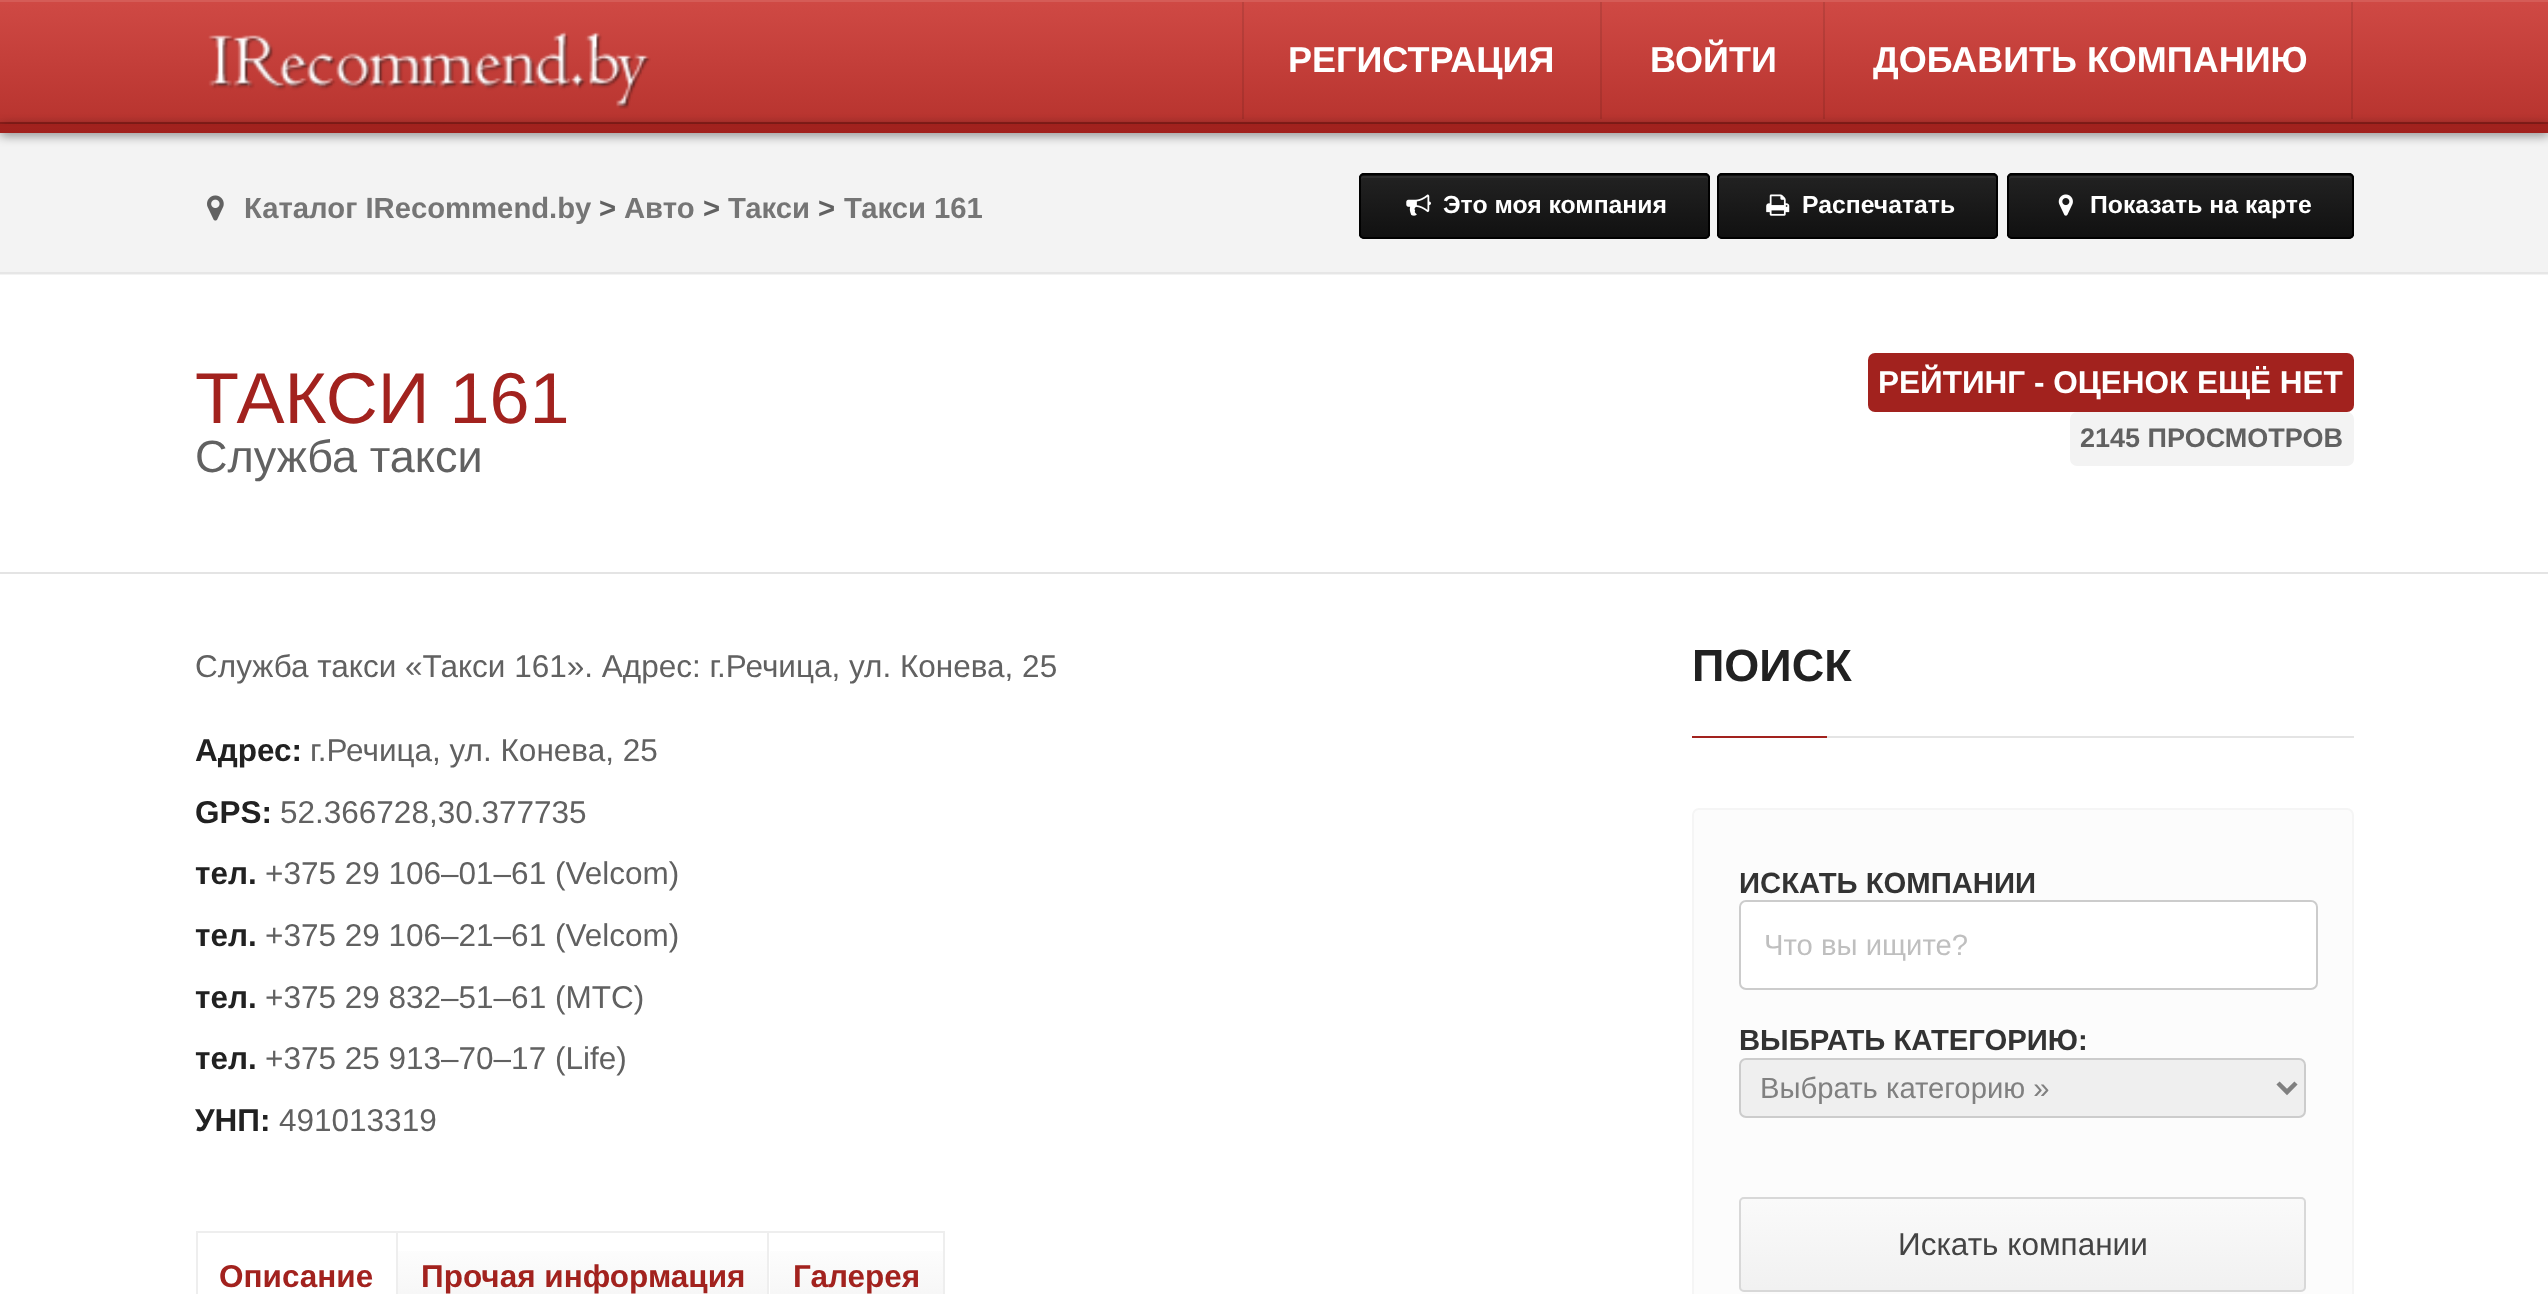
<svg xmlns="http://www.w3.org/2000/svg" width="2548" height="1294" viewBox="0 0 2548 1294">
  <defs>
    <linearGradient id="g1" gradientUnits="userSpaceOnUse" x1="1275" y1="2.2" x2="1275" y2="122"><stop offset="0" stop-color="#cf4944"/><stop offset="1" stop-color="#b8342f"/></linearGradient>
    <linearGradient id="g2" gradientUnits="userSpaceOnUse" x1="1275" y1="2.2" x2="1275" y2="122"><stop offset="0" stop-color="#ba423d"/><stop offset="1" stop-color="#a62f2a"/></linearGradient>
    <linearGradient id="g3" gradientUnits="userSpaceOnUse" x1="1275" y1="119" x2="1275" y2="126"><stop offset="0" stop-color="#a2221e"/><stop offset="1" stop-color="#a1211d"/></linearGradient>
    <linearGradient id="g4" gradientUnits="userSpaceOnUse" x1="1275" y1="126" x2="1275" y2="133"><stop offset="0" stop-color="#a2221e"/><stop offset="1" stop-color="#a1211d"/></linearGradient>
    <clipPath id="clip1"><rect x="1359" y="173" width="351" height="66" rx="5"/></clipPath>
    <linearGradient id="g5" gradientUnits="userSpaceOnUse" x1="1535" y1="175" x2="1535" y2="236"><stop offset="0" stop-color="#222"/><stop offset="1" stop-color="#111"/></linearGradient>
    <clipPath id="clip2"><rect x="1717" y="173" width="281" height="66" rx="5"/></clipPath>
    <linearGradient id="g6" gradientUnits="userSpaceOnUse" x1="1857" y1="176" x2="1857" y2="236"><stop offset="0" stop-color="#222"/><stop offset="1" stop-color="#111"/></linearGradient>
    <clipPath id="clip3"><rect x="2007" y="173" width="347" height="66" rx="5"/></clipPath>
    <linearGradient id="g7" gradientUnits="userSpaceOnUse" x1="2180" y1="175" x2="2180" y2="236"><stop offset="0" stop-color="#222"/><stop offset="1" stop-color="#111"/></linearGradient>
    <linearGradient id="g8" gradientUnits="userSpaceOnUse" x1="583" y1="1233" x2="583" y2="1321"><stop offset="0" stop-color="#fff"/><stop offset="1" stop-color="#f3f3f3"/></linearGradient>
    <linearGradient id="g9" gradientUnits="userSpaceOnUse" x1="856" y1="1233" x2="856" y2="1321"><stop offset="0" stop-color="#fff"/><stop offset="1" stop-color="#f3f3f3"/></linearGradient>
    <clipPath id="clip4"><rect x="1739" y="1197" width="567" height="95" rx="5"/></clipPath>
    <linearGradient id="g10" gradientUnits="userSpaceOnUse" x1="2023" y1="1199" x2="2023" y2="1289"><stop offset="0" stop-color="#fafafa"/><stop offset="1" stop-color="#f1f1f1"/></linearGradient>
  </defs>
  <rect width="100%" height="100%" fill="#fff"/>
  <path d="M0 2h2548v120H0z" fill="url(#g1)"/>
  <path d="M2351 2h2v117H2351z" fill="url(#g2)"/>
  <path d="M1823 2h2v117H1823z" fill="url(#g2)"/>
  <path d="M1242 2h2v117H1242z" fill="url(#g2)"/>
  <path d="M1600 2h2v117H1600z" fill="url(#g2)"/>
  <path d="M0 0h2548v2H0z" fill="#d55c57"/>
  <path d="M0 122h2548v2H0z" fill="#911f1b"/>
  <image x="208" y="31" width="443" height="78" href="img/1.png"/>
  <path d="M0 133h2548v142H0z" fill="#f3f3f3"/>
  <path d="M0 126h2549v9H0z" fill="#00000080" filter="blur(5.5px)"/>
  <path d="M0 124h2548v2H0z" fill="url(#g3)"/>
  <path d="M0 126h2548v7H0z" fill="url(#g4)"/>
  <path d="M0 272h2548v2H0z" fill="#e6e6e6"/>
  <image x="207" y="195" width="17" height="26" href="img/2.png"/>
  <rect x="1359" y="173" width="351" height="66" rx="5" fill="#111"/>
  <g clip-path="url(#clip1)">
    <path d="M1359 176h351v60H1359z" fill="url(#g5)"/>
  </g>
  <path d="M1364 178H1706C1707 178 1708 179 1708 180V178C1708 177 1707 176 1706 176H1363C1362 176 1361 177 1361 178V180C1361 179 1362 178 1364 178Z" fill="#2d2d2d"/>
  <rect x="1360" y="174" width="349" height="64" rx="4" fill="none" stroke="#000" stroke-width="2"/>
  <image x="1406" y="194" width="25" height="22" href="img/3.png"/>
  <rect x="1717" y="173" width="281" height="66" rx="5" fill="#111"/>
  <g clip-path="url(#clip2)">
    <path d="M1717 176h281v60H1717z" fill="url(#g6)"/>
  </g>
  <path d="M1721 178H1994C1995 178 1996 179 1996 180C1996 178 1996 176 1994 176H1721C1719 176 1719 178 1719 180C1719 179 1720 178 1721 178Z" fill="#2d2d2d"/>
  <rect x="1718" y="174" width="279" height="64" rx="4" fill="none" stroke="#000" stroke-width="2"/>
  <image x="1766" y="194" width="24" height="22" href="img/4.png"/>
  <rect x="2007" y="173" width="347" height="66" rx="5" fill="#111"/>
  <g clip-path="url(#clip3)">
    <path d="M2007 176h347v60H2007z" fill="url(#g7)"/>
  </g>
  <path d="M2012 178H2349C2350 178 2351 179 2351 180V178C2351 177 2350 176 2349 176H2011C2010 176 2009 177 2009 178V180C2009 179 2010 178 2012 178Z" fill="#2d2d2d"/>
  <rect x="2008" y="174" width="345" height="64" rx="4" fill="none" stroke="#000" stroke-width="2"/>
  <image x="2058" y="194" width="15" height="22" href="img/5.png"/>
  <path d="M0 572h2548v2H0z" fill="#e4e4e4"/>
  <rect x="1868" y="353" width="486" height="59" rx="7" fill="#a2221e"/>
  <rect x="2070" y="412" width="284" height="54" rx="7" fill="#f3f3f3"/>
  <path d="M196 1231h749v2H196z" fill="#eee"/>
  <path d="M396 1231h2v63H396z" fill="#eee"/>
  <path d="M196 1231h2v63H196z" fill="#eee"/>
  <path d="M398 1251h369v43H398z" fill="url(#g8)"/>
  <path d="M767 1231h2v63H767z" fill="#eee"/>
  <path d="M770 1251h173v43H770z" fill="url(#g9)"/>
  <path d="M943 1231h2v63H943z" fill="#eee"/>
  <path d="M1827 736h527v2H1827z" fill="#e4e4e4"/>
  <path d="M1692 736h135v2H1692z" fill="#a2221e"/>
  <rect x="1693" y="809" width="660" height="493" rx="6" fill="#fcfcfc" stroke="#f5f5f5" stroke-width="2"/>
  <rect x="1740" y="901" width="577" height="88" rx="6" fill="#fff" stroke="#ccc" stroke-width="2"/>
  <rect x="1740" y="1059" width="565" height="58" rx="6" fill="#efefef" stroke="#ccc" stroke-width="2"/>
  <path d="M2278 1083L2287 1092L2296 1083" fill="none" stroke="#808080" stroke-width="4.5"/>
  <rect x="1739" y="1197" width="567" height="95" rx="5" fill="#f1f1f1"/>
  <g clip-path="url(#clip4)">
    <path d="M1739 1199h567v90H1739z" fill="url(#g10)"/>
  </g>
  <rect x="1740" y="1198" width="565" height="93" rx="4" fill="none" stroke="#d8d8d8" stroke-width="2"/>
  <g font-family="Liberation Sans" font-size="36" font-weight="bold" fill="#fff">
    <text x="1288" y="72">РЕГИСТРАЦИЯ</text>
    <text x="1650" y="72">ВОЙТИ</text>
    <text x="1873" y="72">ДОБАВИТЬ КОМПАНИЮ</text>
  </g>
  <text x="244" y="218" font-family="Liberation Sans" font-size="29.25" font-weight="bold" fill="#757575">Каталог IRecommend.by</text>
  <text x="599" y="218" font-family="Liberation Sans" font-size="29.25" font-weight="bold" fill="#616161">&gt;</text>
  <text x="624" y="218" font-family="Liberation Sans" font-size="29.25" font-weight="bold" fill="#757575">Авто</text>
  <text x="703" y="218" font-family="Liberation Sans" font-size="29.25" font-weight="bold" fill="#616161">&gt;</text>
  <text x="728" y="218" font-family="Liberation Sans" font-size="29.25" font-weight="bold" fill="#757575">Такси</text>
  <text x="818" y="218" font-family="Liberation Sans" font-size="29.25" font-weight="bold" fill="#616161">&gt;</text>
  <text x="844" y="218" font-family="Liberation Sans" font-size="29.25" font-weight="bold" fill="#757575">Такси 161</text>
  <g font-family="Liberation Sans" font-size="24.75" font-weight="bold" fill="#fff">
    <text x="1443" y="213">Это моя компания</text>
    <text x="1802" y="213">Распечатать</text>
    <text x="2090" y="213">Показать на карте</text>
  </g>
  <text x="195" y="423" font-family="Liberation Sans" font-size="72" fill="#a2221e">ТАКСИ 161</text>
  <text x="195" y="472" font-family="Liberation Sans" font-size="45" fill="#616161">Служба такси</text>
  <text x="1878" y="393" font-family="Liberation Sans" font-size="31.5" font-weight="bold" fill="#fff">РЕЙТИНГ - ОЦЕНОК ЕЩЁ НЕТ</text>
  <text x="2080" y="447" font-family="Liberation Sans" font-size="27" font-weight="bold" fill="#616161">2145 ПРОСМОТРОВ</text>
  <text x="195" y="677" font-family="Liberation Sans" font-size="31.5" fill="#616161">Служба такси «Такси 161». Адрес: г.Речица, ул. Конева, 25</text>
  <text x="195" y="761" font-family="Liberation Sans" font-size="31.5" font-weight="bold" fill="#212121">Адрес:</text>
  <text x="310" y="761" font-family="Liberation Sans" font-size="31.5" fill="#616161">г.Речица, ул. Конева, 25</text>
  <text x="195" y="823" font-family="Liberation Sans" font-size="31.5" font-weight="bold" fill="#212121">GPS:</text>
  <text x="280" y="823" font-family="Liberation Sans" font-size="31.5" fill="#616161">52.366728,30.377735</text>
  <text x="195" y="884" font-family="Liberation Sans" font-size="31.5" font-weight="bold" fill="#212121">тел.</text>
  <text x="265" y="884" font-family="Liberation Sans" font-size="31.5" fill="#616161">+375 29 106–01–61 (Velcom)</text>
  <text x="195" y="946" font-family="Liberation Sans" font-size="31.5" font-weight="bold" fill="#212121">тел.</text>
  <text x="265" y="946" font-family="Liberation Sans" font-size="31.5" fill="#616161">+375 29 106–21–61 (Velcom)</text>
  <text x="195" y="1008" font-family="Liberation Sans" font-size="31.5" font-weight="bold" fill="#212121">тел.</text>
  <text x="265" y="1008" font-family="Liberation Sans" font-size="31.5" fill="#616161">+375 29 832–51–61 (МТС)</text>
  <text x="195" y="1069" font-family="Liberation Sans" font-size="31.5" font-weight="bold" fill="#212121">тел.</text>
  <text x="265" y="1069" font-family="Liberation Sans" font-size="31.5" fill="#616161">+375 25 913–70–17 (Life)</text>
  <text x="195" y="1131" font-family="Liberation Sans" font-size="31.5" font-weight="bold" fill="#212121">УНП:</text>
  <text x="279" y="1131" font-family="Liberation Sans" font-size="31.5" fill="#616161">491013319</text>
  <g font-family="Liberation Sans" font-size="31.5" font-weight="bold" fill="#a2221e">
    <text x="219" y="1287">Описание</text>
    <text x="421" y="1287">Прочая информация</text>
    <text x="793" y="1287">Галерея</text>
  </g>
  <text x="1692" y="681" font-family="Liberation Sans" font-size="45" font-weight="bold" fill="#212121">ПОИСК</text>
  <text x="1739" y="893" font-family="Liberation Sans" font-size="29.25" font-weight="bold" fill="#333">ИСКАТЬ КОМПАНИИ</text>
  <text x="1764" y="955" font-family="Liberation Sans" font-size="29.25" fill="#bfbfbf">Что вы ищите?</text>
  <text x="1739" y="1050" font-family="Liberation Sans" font-size="29.25" font-weight="bold" fill="#333">ВЫБРАТЬ КАТЕГОРИЮ:</text>
  <text x="1760" y="1098" font-family="Liberation Sans" font-size="29.25" fill="#808080">Выбрать категорию »</text>
  <text x="1898" y="1255" font-family="Liberation Sans" font-size="31.5" fill="#444">Искать компании</text>
</svg>
